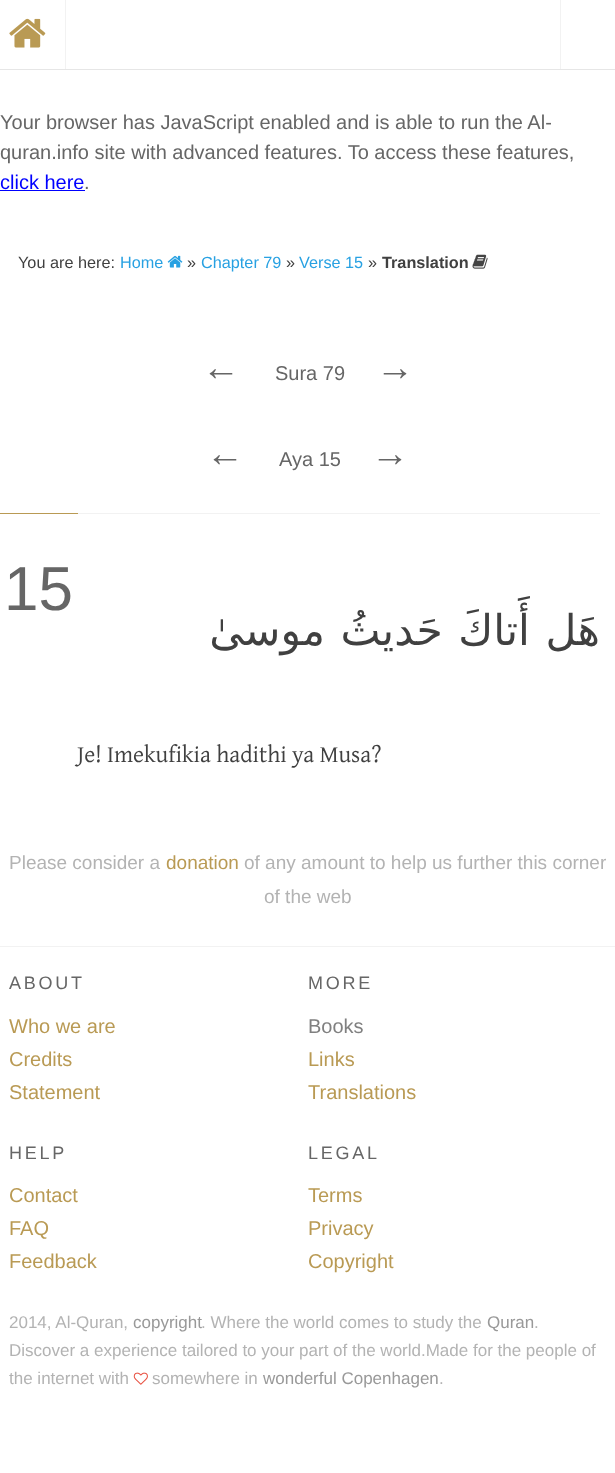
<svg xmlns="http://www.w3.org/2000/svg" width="615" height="1473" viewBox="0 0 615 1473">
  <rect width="100%" height="100%" fill="#fff"/>
  <path d="M0 69h615v1H0z" fill="#e6e6e6"/>
  <path d="M65 0h1v69H65z" fill="#f2f2f2"/>
  <image x="9" y="18" width="37" height="30" href="img/1.png"/>
  <path d="M560 0h1v69H560z" fill="#f2f2f2"/>
  <path d="M0 190h85v1H0z" fill="#00f"/>
  <image x="167" y="255" width="16" height="13" href="img/2.png"/>
  <image x="472" y="254" width="16" height="15" href="img/3.png"/>
  <path d="M0 513h78v1H0z" fill="#b99a54"/>
  <path d="M78 513h522v1H78z" fill="#f2f2f2"/>
  <path d="M0 946h615v1H0z" fill="#f2f2f2"/>
  <image x="133" y="1372" width="15" height="13" href="img/4.png"/>
  <g font-family="Liberation Sans" font-size="20" fill="#666">
    <text x="0" y="129">Your browser has JavaScript enabled and is able to run the Al-</text>
    <text x="0" y="159">quran.info site with advanced features. To access these features,</text>
  </g>
  <text x="0" y="189" font-family="Liberation Sans" font-size="20" fill="#00f">click here</text>
  <text x="84" y="189" font-family="Liberation Sans" font-size="20" fill="#666">.</text>
  <text x="18" y="268" font-family="Liberation Sans" font-size="16.25" fill="#404040">You are here:</text>
  <text x="120" y="268" font-family="Liberation Sans" font-size="16.25" fill="#28a1e2">Home</text>
  <text x="187" y="268" font-family="Liberation Sans" font-size="16.25" fill="#404040">»</text>
  <text x="201" y="268" font-family="Liberation Sans" font-size="16.25" fill="#28a1e2">Chapter 79</text>
  <text x="286" y="268" font-family="Liberation Sans" font-size="16.25" fill="#404040">»</text>
  <text x="299" y="268" font-family="Liberation Sans" font-size="16.25" fill="#28a1e2">Verse 15</text>
  <text x="368" y="268" font-family="Liberation Sans" font-size="16.25" fill="#404040">»</text>
  <text x="382" y="268" font-family="Liberation Sans" font-size="16.25" font-weight="bold" fill="#404040">Translation</text>
  <text x="202" y="380" font-family="Liberation Sans" font-size="38" fill="#666">←</text>
  <text x="275" y="380" font-family="Liberation Sans" font-size="20" fill="#666">Sura 79</text>
  <g font-family="Liberation Sans" font-size="38" fill="#666">
    <text x="376" y="380">→</text>
    <text x="206" y="466">←</text>
  </g>
  <text x="279" y="466" font-family="Liberation Sans" font-size="20" fill="#666">Aya 15</text>
  <text x="371" y="466" font-family="Liberation Sans" font-size="38" fill="#666">→</text>
  <text x="4" y="610" font-family="Liberation Sans" font-size="62" fill="#666">15</text>
  <text x="600" y="645" word-spacing="2" font-family="DejaVu Sans" font-size="42.5" direction="rtl" fill="#404040">هَل أَتاكَ حَديثُ موسىٰ</text>
  <text x="77" y="762" font-family="Gentium Plus" font-size="23.75" fill="#404040">Je! Imekufikia hadithi ya Musa?</text>
  <text x="9" y="869" font-family="Liberation Sans" font-size="19" fill="#b3b3b3">Please consider a</text>
  <text x="166" y="869" font-family="Liberation Sans" font-size="19" fill="#b99a54">donation</text>
  <g font-family="Liberation Sans" font-size="19" fill="#b3b3b3">
    <text x="244" y="869">of any amount to help us further this corner</text>
    <text x="264" y="903">of the web</text>
  </g>
  <text x="9" y="989" font-family="Liberation Sans" font-size="18" letter-spacing="2.75" fill="#666">ABOUT</text>
  <g font-family="Liberation Sans" font-size="20" fill="#b99a54">
    <text x="9" y="1033">Who we are</text>
    <text x="9" y="1066">Credits</text>
    <text x="9" y="1099">Statement</text>
  </g>
  <text x="308" y="989" font-family="Liberation Sans" font-size="18" letter-spacing="2.75" fill="#666">MORE</text>
  <text x="308" y="1033" font-family="Liberation Sans" font-size="20" fill="#808080">Books</text>
  <g font-family="Liberation Sans" font-size="20" fill="#b99a54">
    <text x="308" y="1066">Links</text>
    <text x="308" y="1099">Translations</text>
  </g>
  <text x="9" y="1159" font-family="Liberation Sans" font-size="18" letter-spacing="2.75" fill="#666">HELP</text>
  <g font-family="Liberation Sans" font-size="20" fill="#b99a54">
    <text x="9" y="1202">Contact</text>
    <text x="9" y="1235">FAQ</text>
    <text x="9" y="1268">Feedback</text>
  </g>
  <text x="308" y="1159" font-family="Liberation Sans" font-size="18" letter-spacing="2.75" fill="#666">LEGAL</text>
  <g font-family="Liberation Sans" font-size="20" fill="#b99a54">
    <text x="308" y="1202">Terms</text>
    <text x="308" y="1235">Privacy</text>
    <text x="308" y="1268">Copyright</text>
  </g>
  <text x="9" y="1328" font-family="Liberation Sans" font-size="17" fill="#b3b3b3">2014, Al-Quran,</text>
  <text x="133" y="1328" font-family="Liberation Sans" font-size="17" fill="#999">copyright</text>
  <text x="201" y="1328" font-family="Liberation Sans" font-size="17" fill="#b3b3b3">. Where the world comes to study the</text>
  <text x="487" y="1328" font-family="Liberation Sans" font-size="17" fill="#999">Quran</text>
  <g font-family="Liberation Sans" font-size="17" fill="#b3b3b3">
    <text x="534" y="1328">.</text>
    <text x="9" y="1356">Discover a experience tailored to your part of the world.Made for the people of</text>
    <text x="9" y="1384">the internet with</text>
    <text x="152" y="1384">somewhere in</text>
  </g>
  <text x="263" y="1384" font-family="Liberation Sans" font-size="17" fill="#999">wonderful Copenhagen</text>
  <text x="439" y="1384" font-family="Liberation Sans" font-size="17" fill="#b3b3b3">.</text>
</svg>
